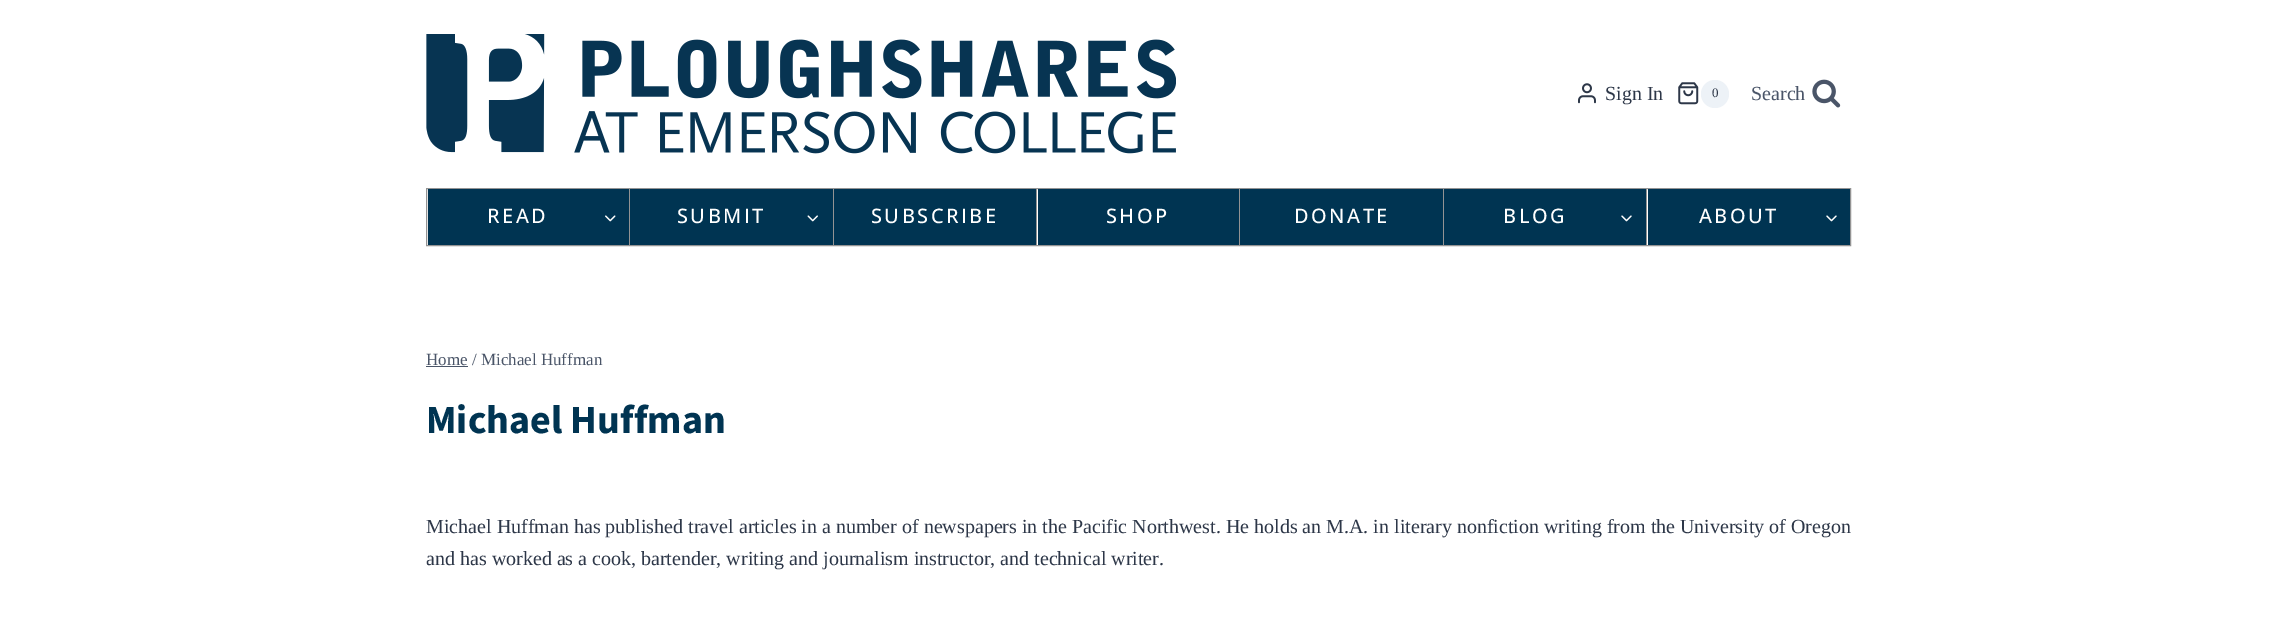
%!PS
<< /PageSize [2277 630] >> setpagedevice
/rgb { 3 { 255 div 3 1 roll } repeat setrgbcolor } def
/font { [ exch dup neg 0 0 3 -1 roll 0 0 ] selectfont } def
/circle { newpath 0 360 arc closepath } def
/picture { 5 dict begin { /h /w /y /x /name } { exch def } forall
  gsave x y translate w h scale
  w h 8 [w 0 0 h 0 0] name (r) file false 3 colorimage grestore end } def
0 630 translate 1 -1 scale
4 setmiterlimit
255 255 255 rgb
0 0 2277 630 rectfill
(img/1.rgb) 426 34 750 120 picture
(img/2.rgb) 1578 83 18 21 picture
(img/3.rgb) 1678 82 21 23 picture
237 242 247 rgb
1715 94 14 circle fill
(img/4.rgb) 1812 79 29 29 picture
147 147 147 rgb
426.5 188.5 1424 57 rectstroke
629 189 1 56 rectfill
0 52 82 rgb
428 189 201 56 rectfill
(img/5.rgb) 605 215 11 7 picture
147 147 147 rgb
833 189 1 56 rectfill
0 52 82 rgb
630 189 203 56 rectfill
(img/6.rgb) 807 215 11 7 picture
[
  [1036 189 1 56 147 147 147]
  [834 189 202 56 0 52 82]
  [1239 189 1 56 147 147 147]
  [1038 189 201 56 0 52 82]
  [1443 189 1 56 147 147 147]
  [1240 189 203 56 0 52 82]
  [1646 189 1 56 147 147 147]
  [1444 189 202 56 0 52 82]
] { aload pop rgb rectfill } forall
(img/7.rgb) 1621 215 11 7 picture
1648 189 202 56 rectfill
(img/7.rgb) 1826 215 11 7 picture
74 85 104 rgb
426 366 42 1 rectfill
/LiberationSerif-Regular 20 font
45 55 72 rgb
1605 100 moveto (Sign In) show
/LiberationSerif-Regular 13 font
1712 97 moveto (0) show
/LiberationSerif-Regular 20 font
74 85 104 rgb
1751 100 moveto (Search) show
/OpenSans-Medium 20 font
255 255 255 rgb
487 223 moveto 2.5 0 (READ) ashow
677 223 moveto 2.5 0 (SUBMIT) ashow
871 223 moveto 2.5 0 (SUBSCRIBE) ashow
1106 223 moveto 2.5 0 (SHOP) ashow
1294 223 moveto 2.5 0 (DONATE) ashow
1503 223 moveto 2.5 0 (BLOG) ashow
1699 223 moveto 2.5 0 (ABOUT) ashow
/LiberationSerif-Regular 17 font
74 85 104 rgb
426 365 moveto (Home / Michael Huffman) show
/SourceSans3-ExtraLight 40 font
0 52 82 rgb
426 433 moveto (Michael Huffman) show
/LiberationSerif-Regular 20 font
45 55 72 rgb
426 533 moveto (Michael Huffman has published travel articles in a number of newspapers in the Pacific Northwest. He holds an M.A. in literary nonfiction writing from the University of Oregon) show
426 565 moveto (and has worked as a cook, bartender, writing and journalism instructor, and technical writer.) show
showpage
